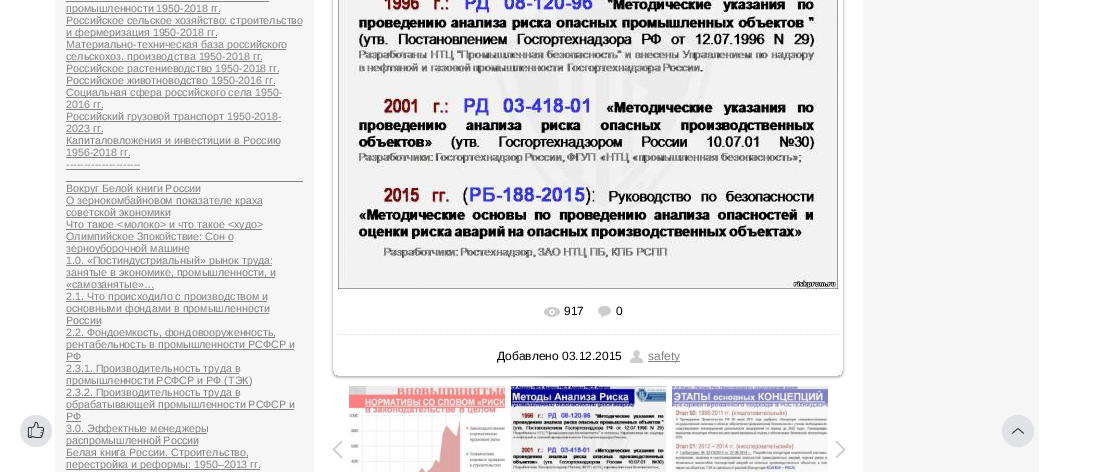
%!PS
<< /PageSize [1094 472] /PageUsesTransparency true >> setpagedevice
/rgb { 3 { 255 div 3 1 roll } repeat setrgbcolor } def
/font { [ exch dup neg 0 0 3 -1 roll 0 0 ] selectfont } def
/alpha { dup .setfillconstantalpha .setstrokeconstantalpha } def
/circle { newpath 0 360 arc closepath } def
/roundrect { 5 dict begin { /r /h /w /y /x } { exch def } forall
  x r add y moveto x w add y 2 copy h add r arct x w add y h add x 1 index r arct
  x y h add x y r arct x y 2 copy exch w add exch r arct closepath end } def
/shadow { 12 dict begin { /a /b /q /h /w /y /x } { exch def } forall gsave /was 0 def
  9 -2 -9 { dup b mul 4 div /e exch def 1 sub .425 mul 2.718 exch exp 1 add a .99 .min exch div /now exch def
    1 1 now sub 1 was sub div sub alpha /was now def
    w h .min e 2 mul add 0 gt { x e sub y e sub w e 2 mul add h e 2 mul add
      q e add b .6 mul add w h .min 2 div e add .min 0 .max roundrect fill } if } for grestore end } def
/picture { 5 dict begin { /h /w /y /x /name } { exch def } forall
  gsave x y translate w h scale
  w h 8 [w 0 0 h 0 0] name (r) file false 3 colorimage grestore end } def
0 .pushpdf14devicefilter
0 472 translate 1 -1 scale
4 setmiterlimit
255 255 255 rgb
0 0 1094 472 rectfill
[
  [55 0 259 472 246 246 246]
  [66 1 203 1 131 131 131]
  [66 13 154 1 131 131 131]
  [66 25 236 1 131 131 131]
  [66 37 151 1 131 131 131]
  [66 49 220 1 131 131 131]
  [66 61 196 1 131 131 131]
  [66 73 213 1 131 131 131]
  [66 85 209 1 131 131 131]
  [66 97 215 1 131 131 131]
  [66 109 37 1 131 131 131]
  [66 121 215 1 131 131 131]
  [66 133 37 1 131 131 131]
  [66 145 214 1 131 131 131]
  [66 157 64 1 131 131 131]
  [66 169 74 1 131 131 131]
  [66 181 237 1 131 131 131]
  [66 193 134 1 131 131 131]
  [66 205 196 1 131 131 131]
  [66 217 104 1 131 131 131]
  [66 229 196 1 131 131 131]
  [66 241 167 1 131 131 131]
  [66 253 123 1 131 131 131]
  [66 265 206 1 131 131 131]
  [66 277 209 1 131 131 131]
  [66 289 88 1 131 131 131]
  [66 301 201 1 131 131 131]
  [66 313 203 1 131 131 131]
  [66 325 35 1 131 131 131]
  [66 337 209 1 131 131 131]
  [66 349 228 1 131 131 131]
  [66 361 15 1 131 131 131]
  [66 373 173 1 131 131 131]
  [66 385 185 1 131 131 131]
  [66 397 173 1 131 131 131]
  [66 409 228 1 131 131 131]
  [66 421 15 1 131 131 131]
  [66 433 141 1 131 131 131]
  [66 445 132 1 131 131 131]
  [66 457 182 1 131 131 131]
  [66 469 194 1 131 131 131]
] { aload pop rgb rectfill } forall
gsave
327 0 moveto 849 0 lineto 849 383 lineto 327 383 lineto closepath 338 -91 moveto 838 -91 lineto 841 -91 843 -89 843 -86 curveto 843 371 lineto 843 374 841 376 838 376 curveto 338 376 lineto 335 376 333 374 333 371 curveto 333 -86 lineto 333 -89 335 -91 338 -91 curveto closepath eoclip newpath
0 0 0 rgb
333 -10 510 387 5 1.5 0.37 shadow
grestore
(img/1.rgb) 338 0 500 289 picture
(img/2.rgb) 544 307 16 10 picture
(img/3.rgb) 598 306 13 12 picture
(img/4.rgb) 338 334 500 1 picture
(img/5.rgb) 630 350 13 13 picture
648 361 32 1 rectfill
(img/6.rgb) 508 376 161 3 picture
(img/7.rgb) 332 441 11 17 picture
(img/8.rgb) 349 386 156 86 picture
(img/9.rgb) 511 386 155 86 picture
(img/10.rgb) 672 386 156 86 picture
(img/11.rgb) 835 441 11 17 picture
246 246 246 rgb
863 0 176 472 rectfill
224 226 230 rgb
36 431 16 circle fill
(img/12.rgb) 27 421 18 17 picture
1018 431 16 circle fill
(img/13.rgb) 1011 428 14 6 picture
/LiberationSans-Regular 10.7 font
131 131 131 rgb
[
  [(промышленности 1950-2018 гг.) 66 12]
  [(Российское сельское хозяйство: строительство) 66 24]
  [(и фермеризация 1950-2018 гг.) 66 36]
  [(Материально-техническая база российского) 66 48]
  [(сельскохоз. производства 1950-2018 гг.) 66 60]
  [(Российское растениеводство 1950-2018 гг.) 66 72]
  [(Российское животноводство 1950-2016 гг.) 66 84]
  [(Социальная сфера российского села 1950-) 66 96]
  [(2016 гг.) 66 108]
  [(Российский грузовой транспорт 1950-2018-) 66 120]
  [(2023 гг.) 66 132]
  [(Капиталовложения и инвестиции в Россию) 66 144]
  [(1956-2018 гг.) 66 156]
  [(---------------------) 66 168]
  [(Вокруг Белой книги России) 66 192]
  [(О зернокомбайновом показателе краха) 66 204]
  [(советской экономики) 66 216]
  [(Что такое <молоко> и что такое <худо>) 66 228]
  [(Олимпийское Зпокойствие: Сон о) 66 240]
  [(зерноуборочной машине) 66 252]
  [(1.0. «Постиндустриальный» рынок труда:) 66 264]
  [(занятые в экономике, промышленности, и) 66 276]
  [(«самозанятые»…) 66 288]
  [(2.1. Что происходило с производством и) 66 300]
  [(основными фондами в промышленности) 66 312]
  [(России) 66 324]
  [(2.2. Фондоемкость, фондовооруженность,) 66 336]
  [(рентабельность в промышленности РСФСР и) 66 348]
  [(РФ) 66 360]
  [(2.3.1. Производительность труда в) 66 372]
  [(промышленности РСФСР и РФ \(ТЭК\)) 66 384]
  [(2.3.2. Производительность труда в) 66 396]
  [(обрабатывающей промышленности РСФСР и) 66 408]
  [(РФ) 66 420]
  [(3.0. Эффектные менеджеры) 66 432]
  [(распромышленной России) 66 444]
  [(Белая книга России. Строительство,) 66 456]
  [(перестройка и реформы: 1950–2013 гг.) 66 468]
] { aload pop moveto show } forall
/LiberationSans-Regular 12 font
0 0 0 rgb
[
  [(917) 564 315]
  [(0) 616 315]
  [(Добавлено 03.12.2015) 497 360]
] { aload pop moveto show } forall
131 131 131 rgb
648 360 moveto (safety) show
.poppdf14devicefilter showpage
